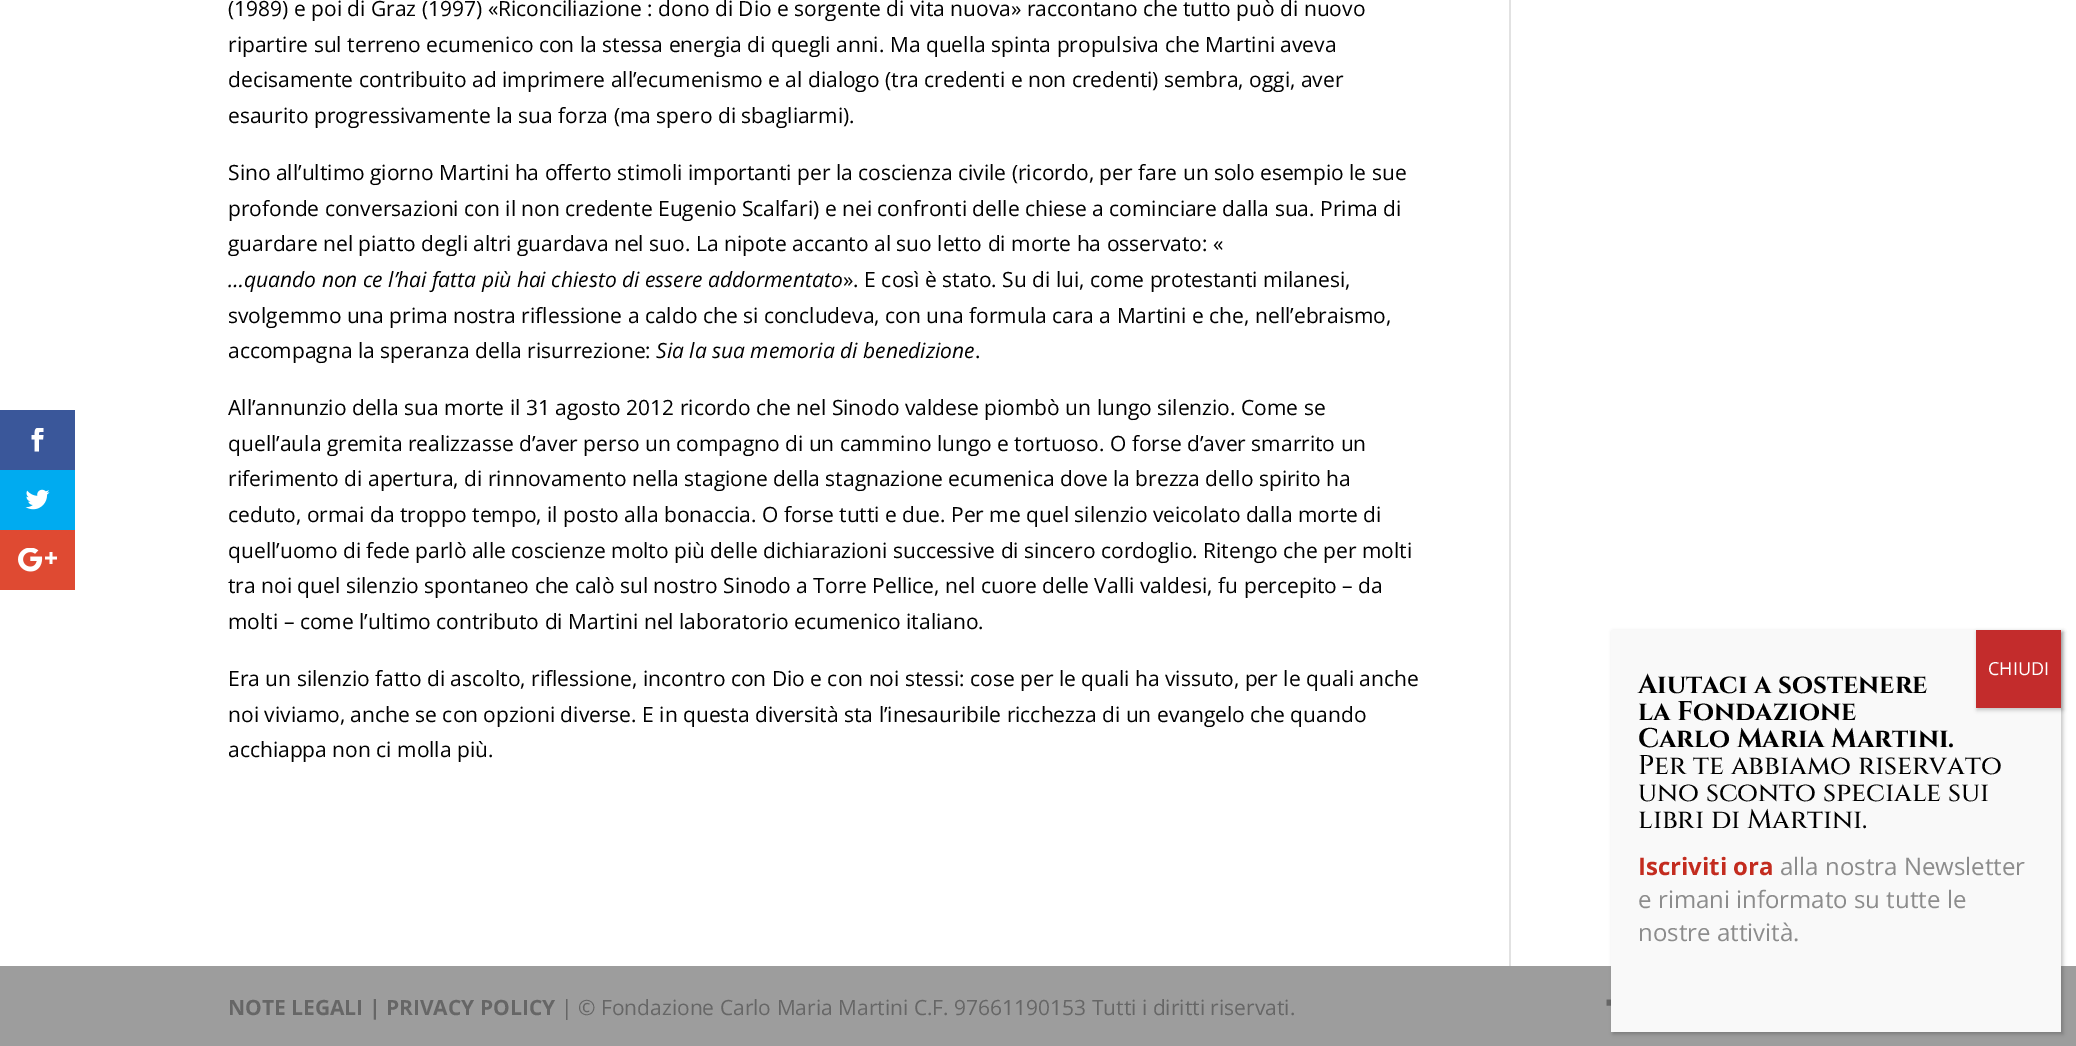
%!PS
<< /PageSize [2076 1046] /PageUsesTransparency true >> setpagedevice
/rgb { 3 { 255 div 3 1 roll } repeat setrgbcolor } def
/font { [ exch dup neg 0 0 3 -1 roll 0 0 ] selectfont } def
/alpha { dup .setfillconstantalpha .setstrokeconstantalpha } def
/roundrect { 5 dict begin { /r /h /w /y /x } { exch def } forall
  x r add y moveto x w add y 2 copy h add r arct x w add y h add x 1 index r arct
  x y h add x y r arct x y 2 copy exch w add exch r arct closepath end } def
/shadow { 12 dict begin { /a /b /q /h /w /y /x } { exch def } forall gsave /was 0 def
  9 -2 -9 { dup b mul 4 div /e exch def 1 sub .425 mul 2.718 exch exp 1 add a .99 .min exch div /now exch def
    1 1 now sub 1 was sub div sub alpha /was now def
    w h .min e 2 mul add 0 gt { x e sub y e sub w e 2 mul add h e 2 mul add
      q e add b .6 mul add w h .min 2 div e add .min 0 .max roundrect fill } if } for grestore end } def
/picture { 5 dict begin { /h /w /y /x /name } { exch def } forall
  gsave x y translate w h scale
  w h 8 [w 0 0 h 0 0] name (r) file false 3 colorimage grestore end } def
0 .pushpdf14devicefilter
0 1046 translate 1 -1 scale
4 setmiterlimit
255 255 255 rgb
0 0 2076 1046 rectfill
58 87 154 rgb
0 410 75 60 rectfill
(img/1.rgb) 31 428 13 24 picture
0 171 240 rgb
0 470 75 60 rectfill
(img/2.rgb) 25 489 25 21 picture
223 74 50 rgb
0 530 75 60 rectfill
(img/3.rgb) 18 548 39 24 picture
226 226 226 rgb
1509 0 2 966 rectfill
157 157 157 rgb
0 966 2076 80 rectfill
(img/4.rgb) 1606 999 5 7 picture
2 2 2 rgb
1613 632 450 402 0 2 0.23 shadow
249 249 249 rgb
1611 630 450 402 rectfill
2 2 2 rgb
1977 632 86 78 0 2 0.23 shadow
195 44 44 rgb
1976 630 85 78 rectfill
/OpenSans-Regular 21 font
0 0 0 rgb
[
  [(\(1989\) e poi di Graz \(1997\) «Riconciliazione : dono di Dio e sorgente di vita nuova» raccontano che tutto può di nuovo) 228 16]
  [(ripartire sul terreno ecumenico con la stessa energia di quegli anni. Ma quella spinta propulsiva che Martini aveva) 228 52]
  [(decisamente contribuito ad imprimere all’ecumenismo e al dialogo \(tra credenti e non credenti\) sembra, oggi, aver) 228 87]
  [(esaurito progressivamente la sua forza \(ma spero di sbagliarmi\).) 228 123]
  [(Sino all’ultimo giorno Martini ha offerto stimoli importanti per la coscienza civile \(ricordo, per fare un solo esempio le sue) 228 180]
  [(profonde conversazioni con il non credente Eugenio Scalfari\) e nei confronti delle chiese a cominciare dalla sua. Prima di) 228 216]
  [(guardare nel piatto degli altri guardava nel suo. La nipote accanto al suo letto di morte ha osservato: «) 228 251]
] { aload pop moveto show } forall
/OpenSans-Italic 21 font
228 287 moveto (…quando non ce l’hai fatta più hai chiesto di essere addormentato) show
/OpenSans-Regular 21 font
[
  [(». E così è stato. Su di lui, come protestanti milanesi,) 843 287]
  [(svolgemmo una prima nostra riflessione a caldo che si concludeva, con una formula cara a Martini e che, nell’ebraismo,) 228 323]
  [(accompagna la speranza della risurrezione:) 228 358]
] { aload pop moveto show } forall
/OpenSans-Italic 21 font
656 358 moveto (Sia la sua memoria di benedizione) show
/OpenSans-Regular 21 font
[
  [(.) 975 358]
  [(All’annunzio della sua morte il 31 agosto 2012 ricordo che nel Sinodo valdese piombò un lungo silenzio. Come se) 228 415]
  [(quell’aula gremita realizzasse d’aver perso un compagno di un cammino lungo e tortuoso. O forse d’aver smarrito un) 228 451]
  [(riferimento di apertura, di rinnovamento nella stagione della stagnazione ecumenica dove la brezza dello spirito ha) 228 486]
  [(ceduto, ormai da troppo tempo, il posto alla bonaccia. O forse tutti e due. Per me quel silenzio veicolato dalla morte di) 228 522]
  [(quell’uomo di fede parlò alle coscienze molto più delle dichiarazioni successive di sincero cordoglio. Ritengo che per molti) 228 558]
  [(tra noi quel silenzio spontaneo che calò sul nostro Sinodo a Torre Pellice, nel cuore delle Valli valdesi, fu percepito – da) 228 593]
  [(molti – come l’ultimo contributo di Martini nel laboratorio ecumenico italiano.) 228 629]
  [(Era un silenzio fatto di ascolto, riflessione, incontro con Dio e con noi stessi: cose per le quali ha vissuto, per le quali anche) 228 686]
  [(noi viviamo, anche se con opzioni diverse. E in questa diversità sta l’inesauribile ricchezza di un evangelo che quando) 228 722]
  [(acchiappa non ci molla più.) 228 757]
] { aload pop moveto show } forall
/OpenSans-Bold 21 font
102 102 102 rgb
228 1015 moveto (NOTE LEGALI | PRIVACY POLICY) show
/OpenSans-Regular 21 font
561 1015 moveto (| © Fondazione Carlo Maria Martini C.F. 97661190153 Tutti i diritti riservati.) show
/OpenSans-Regular 18 font
255 255 255 rgb
1988 675 moveto (CHIUDI) show
/Cinzel-Bold 27 font
0 0 0 rgb
[
  [(Aiutaci a sostenere) 1638 693]
  [(la Fondazione) 1638 720]
  [(Carlo Maria Martini.) 1638 747]
] { aload pop moveto show } forall
/Cinzel-Medium 27 font
[
  [(Per te abbiamo riservato) 1638 774]
  [(uno sconto speciale sui) 1638 801]
  [(libri di Martini.) 1638 828]
] { aload pop moveto show } forall
/OpenSans-Bold 24 font
195 44 31 rgb
1638 875 moveto (Iscriviti ora) show
/OpenSans-Regular 24 font
140 140 140 rgb
[
  [(alla nostra Newsletter) 1780 875]
  [(e rimani informato su tutte le) 1638 908]
  [(nostre attività.) 1638 941]
] { aload pop moveto show } forall
.poppdf14devicefilter showpage
